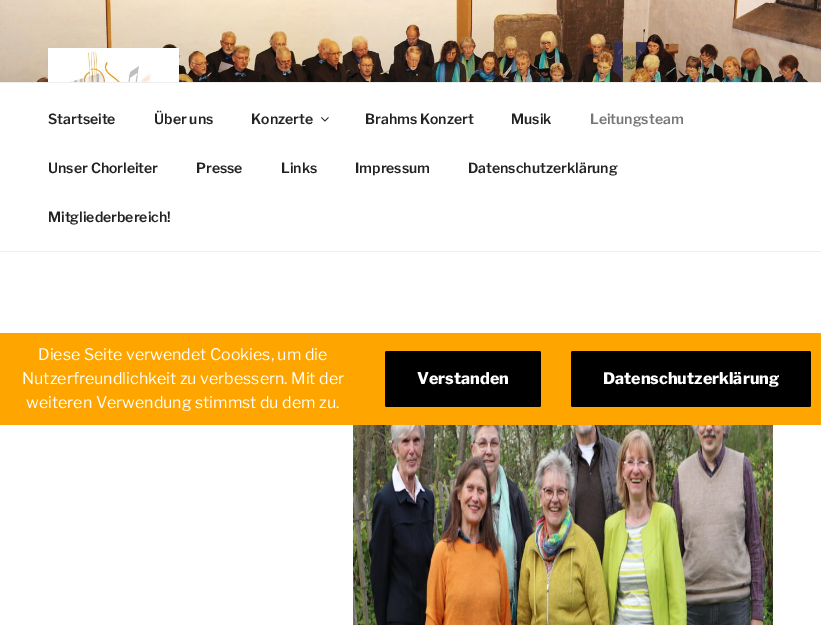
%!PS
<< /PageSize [821 625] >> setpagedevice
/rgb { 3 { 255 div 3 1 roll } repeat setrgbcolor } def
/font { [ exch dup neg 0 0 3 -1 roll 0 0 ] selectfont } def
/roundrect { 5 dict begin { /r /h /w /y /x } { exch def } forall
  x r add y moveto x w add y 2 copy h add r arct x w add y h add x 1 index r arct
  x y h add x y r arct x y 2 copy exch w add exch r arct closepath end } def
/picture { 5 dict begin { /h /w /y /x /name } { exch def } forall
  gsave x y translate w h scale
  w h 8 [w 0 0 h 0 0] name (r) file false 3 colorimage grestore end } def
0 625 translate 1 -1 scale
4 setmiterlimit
255 255 255 rgb
0 0 821 625 rectfill
(img/1.rgb) 0 0 821 82 picture
(img/2.rgb) 48 48 131 34 picture
238 238 238 rgb
0 82 821 1 rectfill
0 251 821 1 rectfill
(img/3.rgb) 321 117 8 5 picture
(img/4.rgb) 353 425 420 200 picture
255 165 0 rgb
0 333 821 92 rectfill
0 0 0 rgb
385 351 156 56 2 roundrect fill
571 351 240 56 2 roundrect fill
/LibreFranklin-Thin 14 font
34 34 34 rgb
[
  [(Startseite) 48 124]
  [(Über uns) 154 124]
  [(Konzerte) 251 124]
  [(Brahms Konzert) 365 124]
  [(Musik) 511 124]
] { aload pop moveto show } forall
118 118 118 rgb
590 124 moveto (Leitungsteam) show
34 34 34 rgb
[
  [(Unser Chorleiter) 48 173]
  [(Presse) 196 173]
  [(Links) 281 173]
  [(Impressum) 355 173]
  [(Datenschutzerklärung) 468 173]
  [(Mitgliederbereich!) 48 222]
] { aload pop moveto show } forall
/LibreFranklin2-Thin 16 font
255 255 255 rgb
[
  [(Diese Seite verwendet Cookies, um die) 38 360]
  [(Nutzerfreundlichkeit zu verbessern. Mit der) 22 384]
  [(weiteren Verwendung stimmst du dem zu.) 26 408]
] { aload pop moveto show } forall
/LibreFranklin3-Thin 16 font
417 384 moveto (Verstanden) show
603 384 moveto (Datenschutzerklärung) show
showpage
